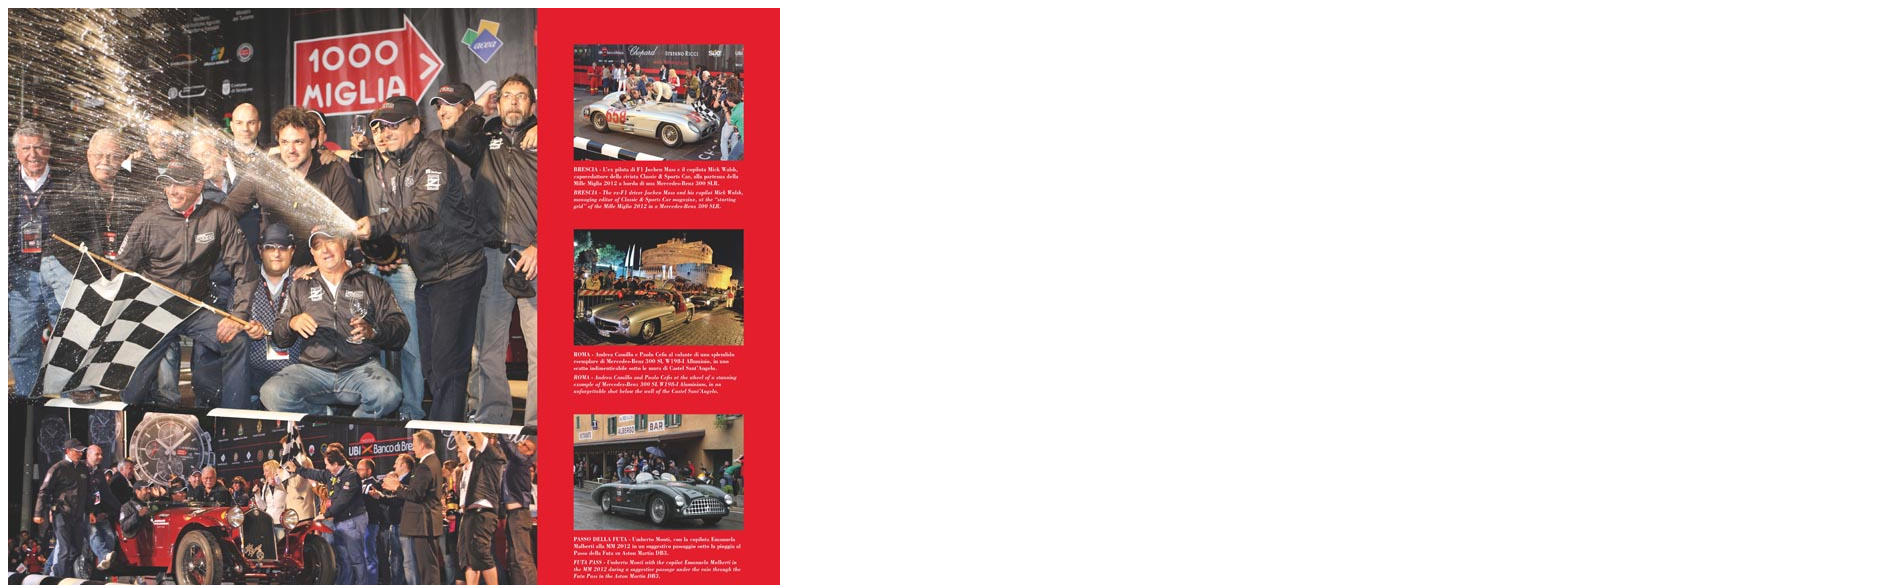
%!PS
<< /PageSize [1900 585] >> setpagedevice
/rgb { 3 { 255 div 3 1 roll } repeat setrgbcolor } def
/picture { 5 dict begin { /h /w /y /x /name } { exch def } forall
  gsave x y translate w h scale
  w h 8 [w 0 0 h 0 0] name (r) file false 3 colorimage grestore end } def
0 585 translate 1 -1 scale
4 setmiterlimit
255 255 255 rgb
0 0 1900 585 rectfill
(img/1.rgb) 8 8 772 577 picture
showpage
